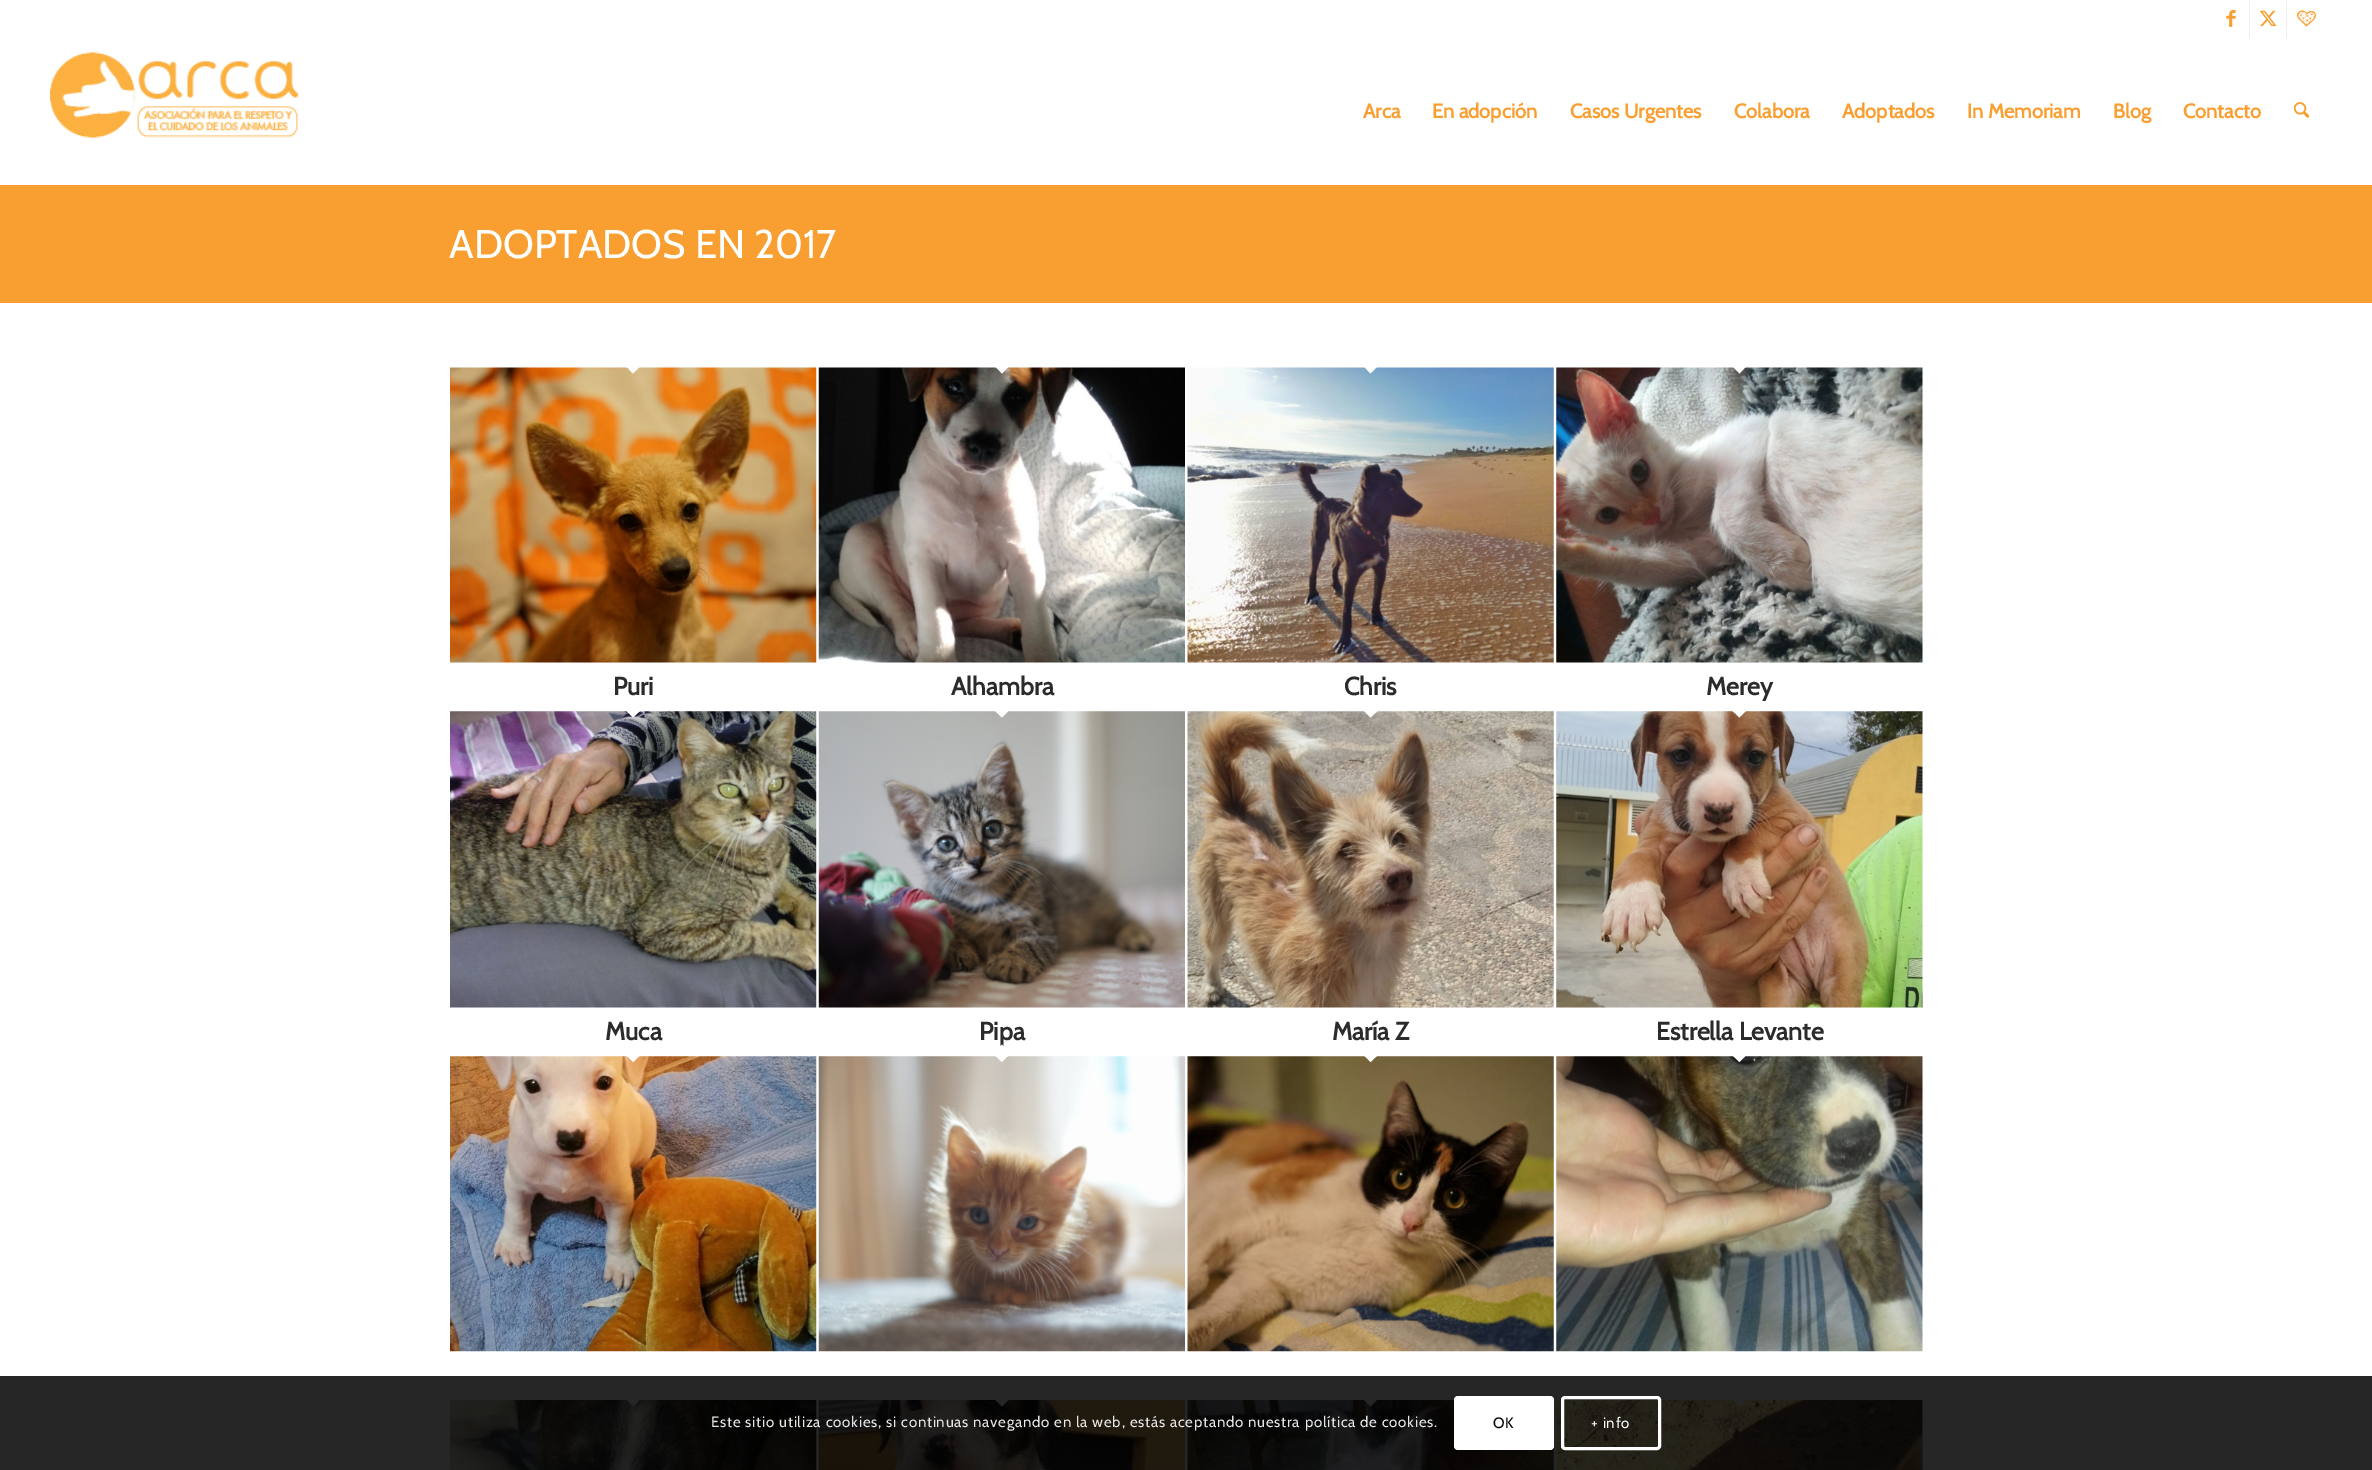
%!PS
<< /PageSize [2372 1470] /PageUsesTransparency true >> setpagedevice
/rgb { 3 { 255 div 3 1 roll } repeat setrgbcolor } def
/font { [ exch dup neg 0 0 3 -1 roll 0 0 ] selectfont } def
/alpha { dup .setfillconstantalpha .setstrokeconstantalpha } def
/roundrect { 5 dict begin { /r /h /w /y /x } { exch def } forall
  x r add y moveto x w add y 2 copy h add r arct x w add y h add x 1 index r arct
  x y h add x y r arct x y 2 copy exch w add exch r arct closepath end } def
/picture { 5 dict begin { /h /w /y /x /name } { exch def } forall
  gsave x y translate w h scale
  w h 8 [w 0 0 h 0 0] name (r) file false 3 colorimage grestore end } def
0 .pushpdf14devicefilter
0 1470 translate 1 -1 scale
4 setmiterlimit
255 255 255 rgb
0 0 2372 1470 rectfill
238 238 238 rgb
2249 0 1 38 rectfill
(img/1.rgb) 2226 10 10 17 picture
2286 0 1 38 rectfill
(img/2.rgb) 2259 10 18 17 picture
(img/3.rgb) 2296 10 20 17 picture
(img/4.rgb) 49 52 250 86 picture
(img/5.rgb) 2294 102 15 16 picture
249 159 50 rgb
0 185 2372 118 rectfill
(img/6.rgb) 450 367 367 296 picture
255 255 255 rgb
633 355.5 moveto 642 364.5 lineto 633 373.5 lineto 624.5 364.5 lineto closepath fill
(img/7.rgb) 818 367 367 296 picture
1002 355.5 moveto 1010.5 364.5 lineto 1002 373.5 lineto 993 364.5 lineto closepath fill
(img/8.rgb) 1187 367 367 296 picture
1370.5 355.5 moveto 1379.5 364.5 lineto 1370.5 373.5 lineto 1362 364.5 lineto closepath fill
(img/9.rgb) 1556 367 367 296 picture
1739.5 355.5 moveto 1748 364.5 lineto 1739.5 373.5 lineto 1730.5 364.5 lineto closepath fill
(img/10.rgb) 450 711 367 297 picture
633 700 moveto 642 709 lineto 633 717.5 lineto 624.5 709 lineto closepath fill
(img/11.rgb) 818 711 367 297 picture
1002 700 moveto 1010.5 709 lineto 1002 717.5 lineto 993 709 lineto closepath fill
(img/12.rgb) 1187 711 367 297 picture
1370.5 700 moveto 1379.5 709 lineto 1370.5 717.5 lineto 1362 709 lineto closepath fill
(img/13.rgb) 1556 711 367 297 picture
(img/14.rgb) 450 1056 367 296 picture
633 1044.5 moveto 642 1053.5 lineto 633 1062 lineto 624.5 1053.5 lineto closepath fill
(img/15.rgb) 818 1056 367 296 picture
(img/16.rgb) 1187 1056 367 296 picture
1370.5 1044.5 moveto 1379.5 1053.5 lineto 1370.5 1062 lineto 1362 1053.5 lineto closepath fill
(img/17.rgb) 1556 1056 367 296 picture
1739.5 1044.5 moveto 1748 1053.5 lineto 1739.5 1062 lineto 1730.5 1053.5 lineto closepath fill
(img/18.rgb) 450 1400 367 70 picture
633 1389 moveto 642 1397.5 lineto 633 1406.5 lineto 624.5 1397.5 lineto closepath fill
(img/19.rgb) 818 1400 367 70 picture
1002 1389 moveto 1010.5 1397.5 lineto 1002 1406.5 lineto 993 1397.5 lineto closepath fill
(img/20.rgb) 1187 1400 367 70 picture
1370.5 1389 moveto 1379.5 1397.5 lineto 1370.5 1406.5 lineto 1362 1397.5 lineto closepath fill
(img/21.rgb) 1556 1400 367 70 picture
1739.5 1389 moveto 1748 1397.5 lineto 1739.5 1406.5 lineto 1730.5 1397.5 lineto closepath fill
0.85 alpha
0 0 0 rgb
0 1376 2372 94 rectfill
1 alpha
255 255 255 rgb
1454 1396 100 54 4 roundrect fill
3 setlinewidth
1562.5 1397.5 97 51 2.5 roundrect stroke
/Cabin-Bold 20 font
249 159 49 rgb
[
  [(Arca) 1363 118]
  [(En adopción) 1432 118]
  [(Casos Urgentes) 1570 118]
  [(Colabora) 1734 118]
  [(Adoptados) 1842 118]
  [(In Memoriam) 1967 118]
  [(Blog) 2113 118]
  [(Contacto) 2183 118]
] { aload pop moveto show } forall
/Cabin-Regular 40 font
255 255 255 rgb
449 258 moveto (ADOPTADOS EN 2017) show
/Cabin-Bold 25 font
43 43 43 rgb
[
  [(Puri) 613 695]
  [(Alhambra) 951 695]
  [(Chris) 1344 695]
  [(Merey) 1706 695]
  [(Muca) 605 1040]
  [(Pipa) 979 1040]
  [(María Z) 1332 1040]
] { aload pop moveto show } forall
255 255 255 rgb
1739.5 700 moveto 1748 709 lineto 1739.5 717.5 lineto 1730.5 709 lineto closepath fill
43 43 43 rgb
1656 1040 moveto (Estrella Levante) show
255 255 255 rgb
1002 1044.5 moveto 1010.5 1053.5 lineto 1002 1062 lineto 993 1053.5 lineto closepath fill
/Cabin-Regular 15 font
231 231 231 rgb
711 1427 moveto 0.75 0 (Este sitio utiliza cookies, si continuas navegando en la web, estás aceptando nuestra política de cookies.) ashow
0 0 0 rgb
1493 1428 moveto 0.75 0 (OK) ashow
255 255 255 rgb
1591 1428 moveto 0.75 0 (+ info) ashow
.poppdf14devicefilter showpage
